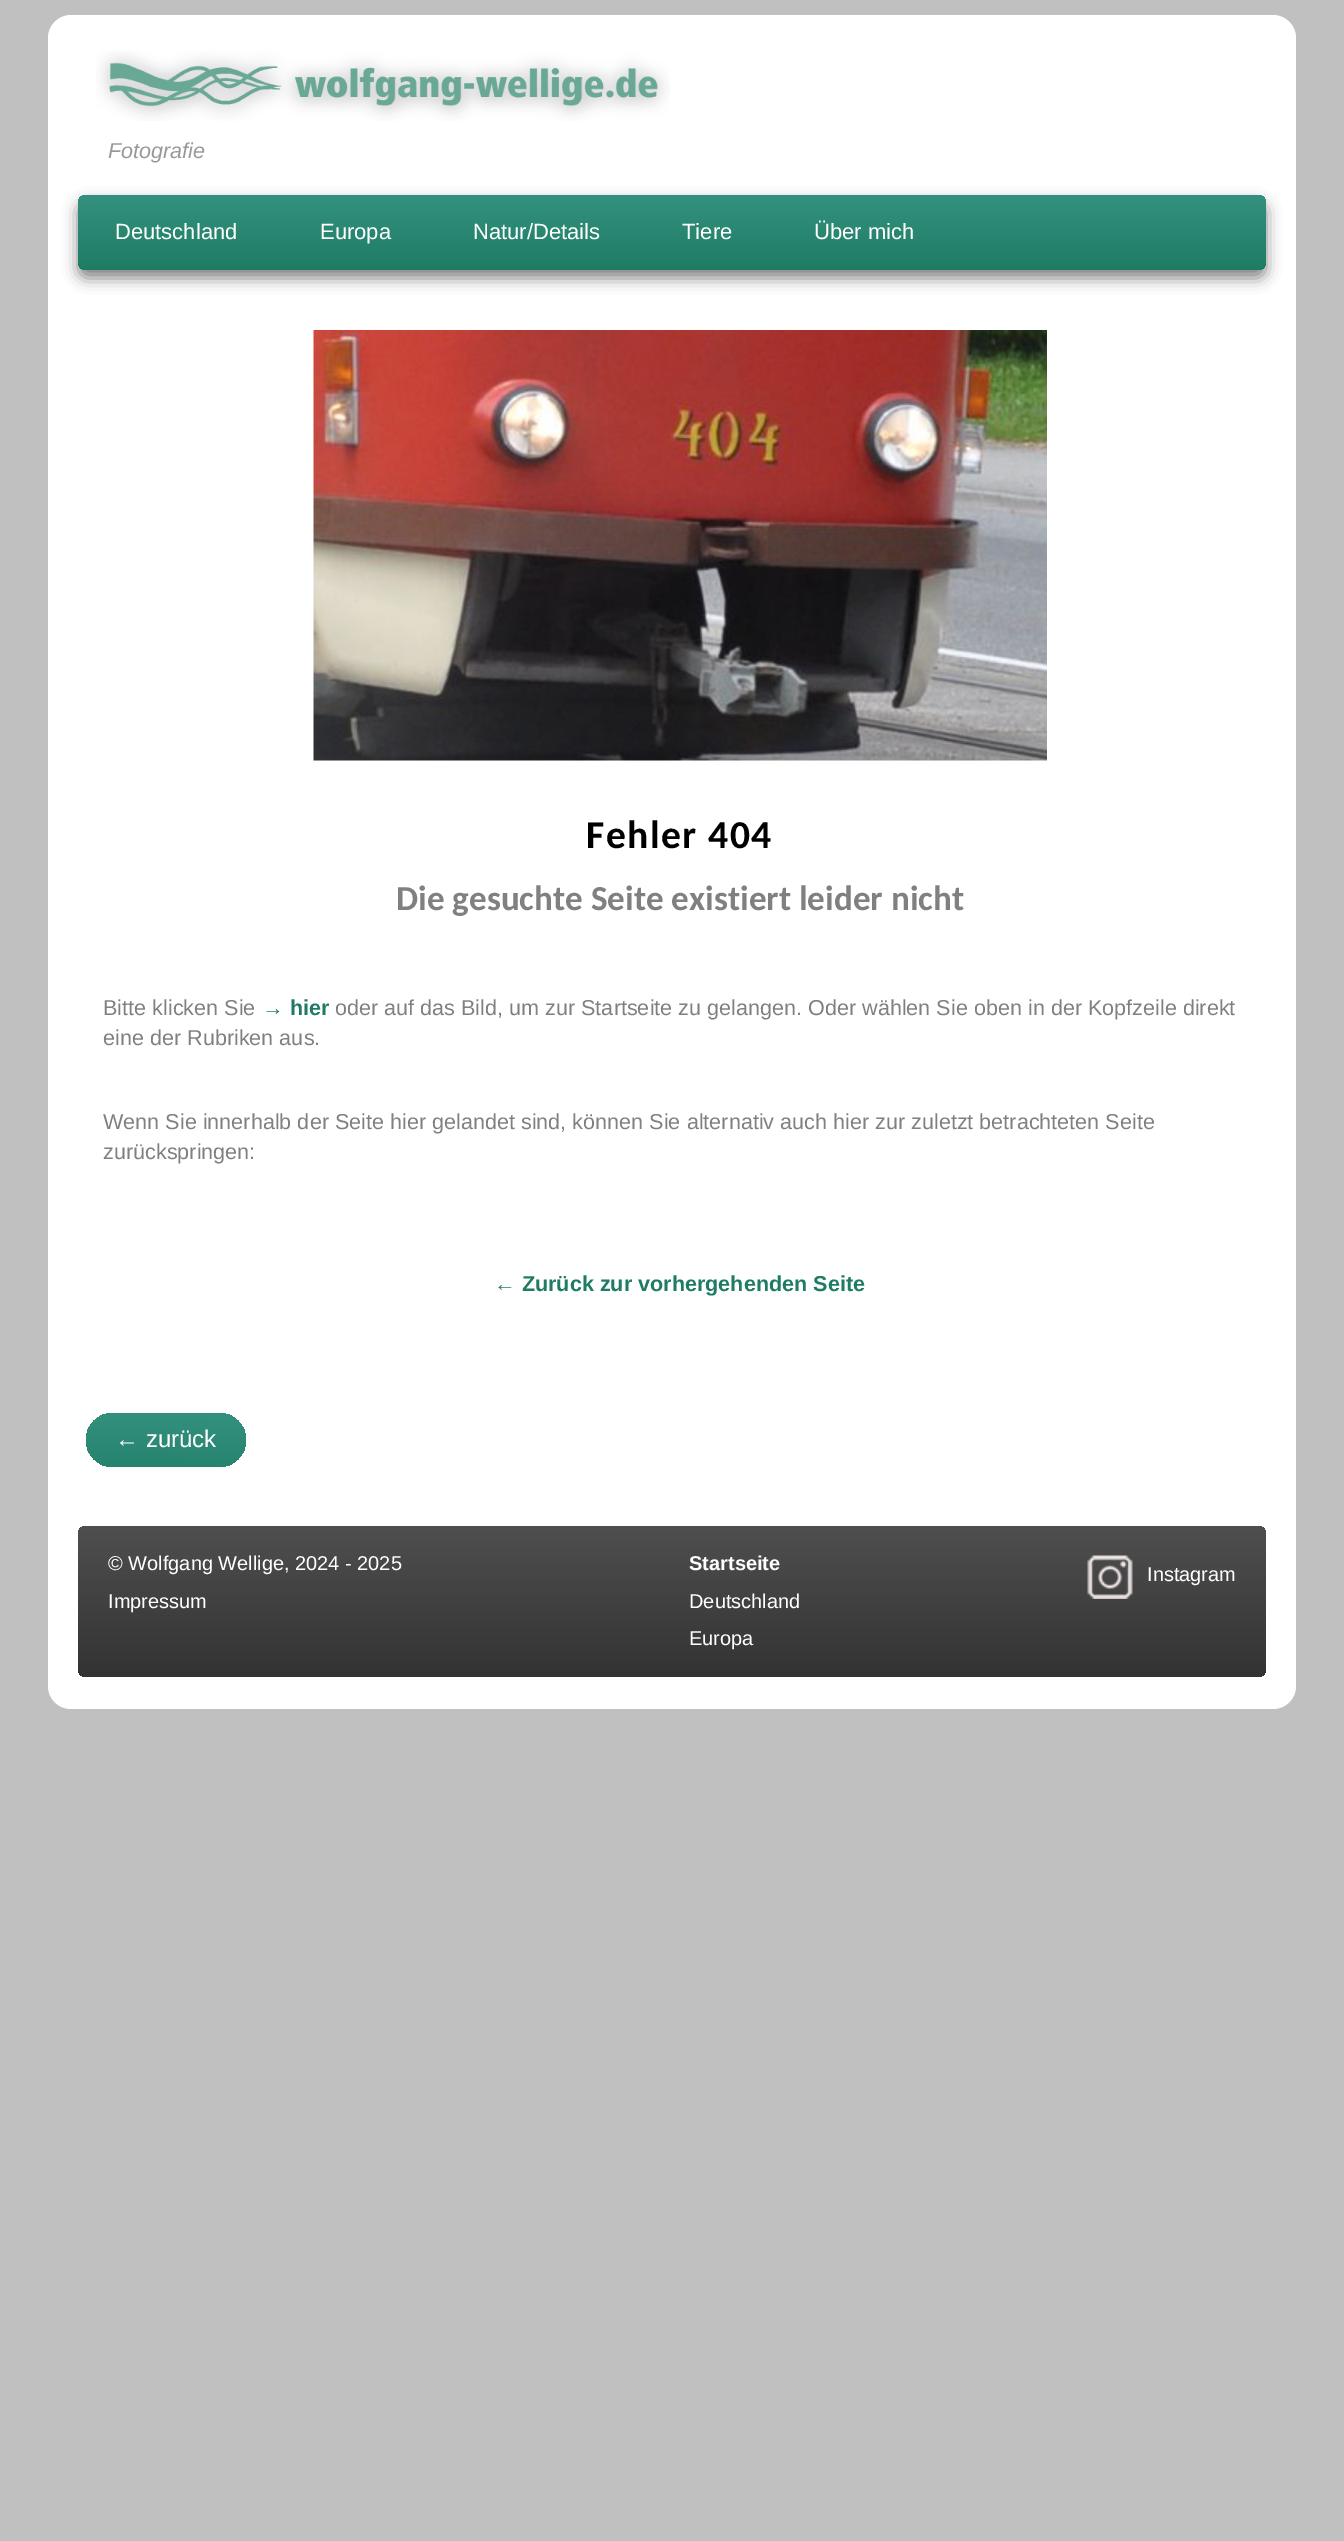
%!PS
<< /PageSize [1344 2541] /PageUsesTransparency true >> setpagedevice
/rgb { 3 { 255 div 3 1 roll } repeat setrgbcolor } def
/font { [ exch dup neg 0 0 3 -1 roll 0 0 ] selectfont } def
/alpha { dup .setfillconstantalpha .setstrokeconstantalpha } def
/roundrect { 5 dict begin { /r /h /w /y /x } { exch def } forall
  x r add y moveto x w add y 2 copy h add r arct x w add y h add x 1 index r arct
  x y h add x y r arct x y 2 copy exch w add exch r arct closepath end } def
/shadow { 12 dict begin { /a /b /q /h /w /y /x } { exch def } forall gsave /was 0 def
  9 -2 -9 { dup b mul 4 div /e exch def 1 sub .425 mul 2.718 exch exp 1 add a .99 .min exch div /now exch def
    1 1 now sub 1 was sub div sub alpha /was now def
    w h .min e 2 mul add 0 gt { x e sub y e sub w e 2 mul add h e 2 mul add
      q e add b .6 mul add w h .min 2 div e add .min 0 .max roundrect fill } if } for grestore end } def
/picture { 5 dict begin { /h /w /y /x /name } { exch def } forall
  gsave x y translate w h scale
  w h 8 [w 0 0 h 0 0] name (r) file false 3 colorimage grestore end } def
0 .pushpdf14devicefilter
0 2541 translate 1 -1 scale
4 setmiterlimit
192 192 192 rgb
0 0 1344 2541 rectfill
255 255 255 rgb
48 15 1248 1694 23 roundrect fill
(img/1.rgb) 96 50 574 71 picture
128 128 128 rgb
78 203 1188 75 8 7.5 1 shadow
gsave 78 195 1188 75 8 roundrect clip newpath
<< /ShadingType 2 /ColorSpace /DeviceRGB /Coords [672 195 672 270] /Extend [true true] /Function << /FunctionType 2 /Domain [0 1] /C0 [0.2 0.569 0.498] /C1 [0.122 0.486 0.392] /N 1 >> >> shfill grestore
(img/2.rgb) 313 330 734 431 picture
gsave 86 1413 160 54 27 roundrect clip newpath
<< /ShadingType 2 /ColorSpace /DeviceRGB /Coords [180 1499 182 1411] /Extend [true true] /Function << /FunctionType 2 /Domain [0 1] /C0 [0.122 0.486 0.392] /C1 [0.2 0.569 0.498] /N 1 >> >> shfill grestore
gsave 78 1526 1188 151 8 roundrect clip newpath
<< /ShadingType 2 /ColorSpace /DeviceRGB /Coords [672 1526 672 1677] /Extend [true true] /Function << /FunctionType 2 /Domain [0 1] /C0 [0.31 0.31 0.31] /C1 [0.2 0.2 0.2] /N 1 >> >> shfill grestore
(img/3.rgb) 1087 1555 46 44 picture
/LiberationSans-Italic 21.6 font
153 153 153 rgb
108 158 moveto (Fotografie) show
/LiberationSans-Regular 22 font
255 255 255 rgb
[
  [(Deutschland) 115 239]
  [(Europa) 320 239]
  [(Natur/Details) 473 239]
  [(Tiere) 682 239]
  [(Über mich) 814 239]
] { aload pop moveto show } forall
/Carlito-Bold 39.5 font
0 0 0 rgb
586 848 moveto 1.5 0 (Fehler 404) ashow
/Carlito-Bold 35.1 font
128 128 128 rgb
396 910 moveto (Die gesuchte Seite existiert leider nicht) show
/LiberationSans-Regular 21.6 font
103 1015 moveto (Bitte klicken Sie) show
/LiberationSans-Bold 21.6 font
31 124 100 rgb
262 1015 moveto (→ hier) show
/LiberationSans-Regular 21.6 font
128 128 128 rgb
[
  [(oder auf das Bild, um zur Startseite zu gelangen. Oder wählen Sie oben in der Kopfzeile direkt) 335 1015]
  [(eine der Rubriken aus.) 103 1045]
  [(Wenn Sie innerhalb der Seite hier gelandet sind, können Sie alternativ auch hier zur zuletzt betrachteten Seite) 103 1129]
  [(zurückspringen:) 103 1159]
] { aload pop moveto show } forall
/LiberationSans-Bold 21.6 font
31 124 100 rgb
494 1291 moveto (← Zurück zur vorhergehenden Seite) show
/LiberationSans-Regular 24 font
255 255 255 rgb
115 1447 moveto (← zurück) show
/LiberationSans-Regular 20 font
108 1570 moveto (© Wolfgang Wellige, 2024 - 2025) show
108 1608 moveto (Impressum) show
/LiberationSans-Bold 20 font
689 1570 moveto (Startseite) show
/LiberationSans-Regular 20 font
[
  [(Deutschland) 689 1608]
  [(Europa) 689 1645]
  [(Instagram) 1147 1581]
] { aload pop moveto show } forall
.poppdf14devicefilter showpage
